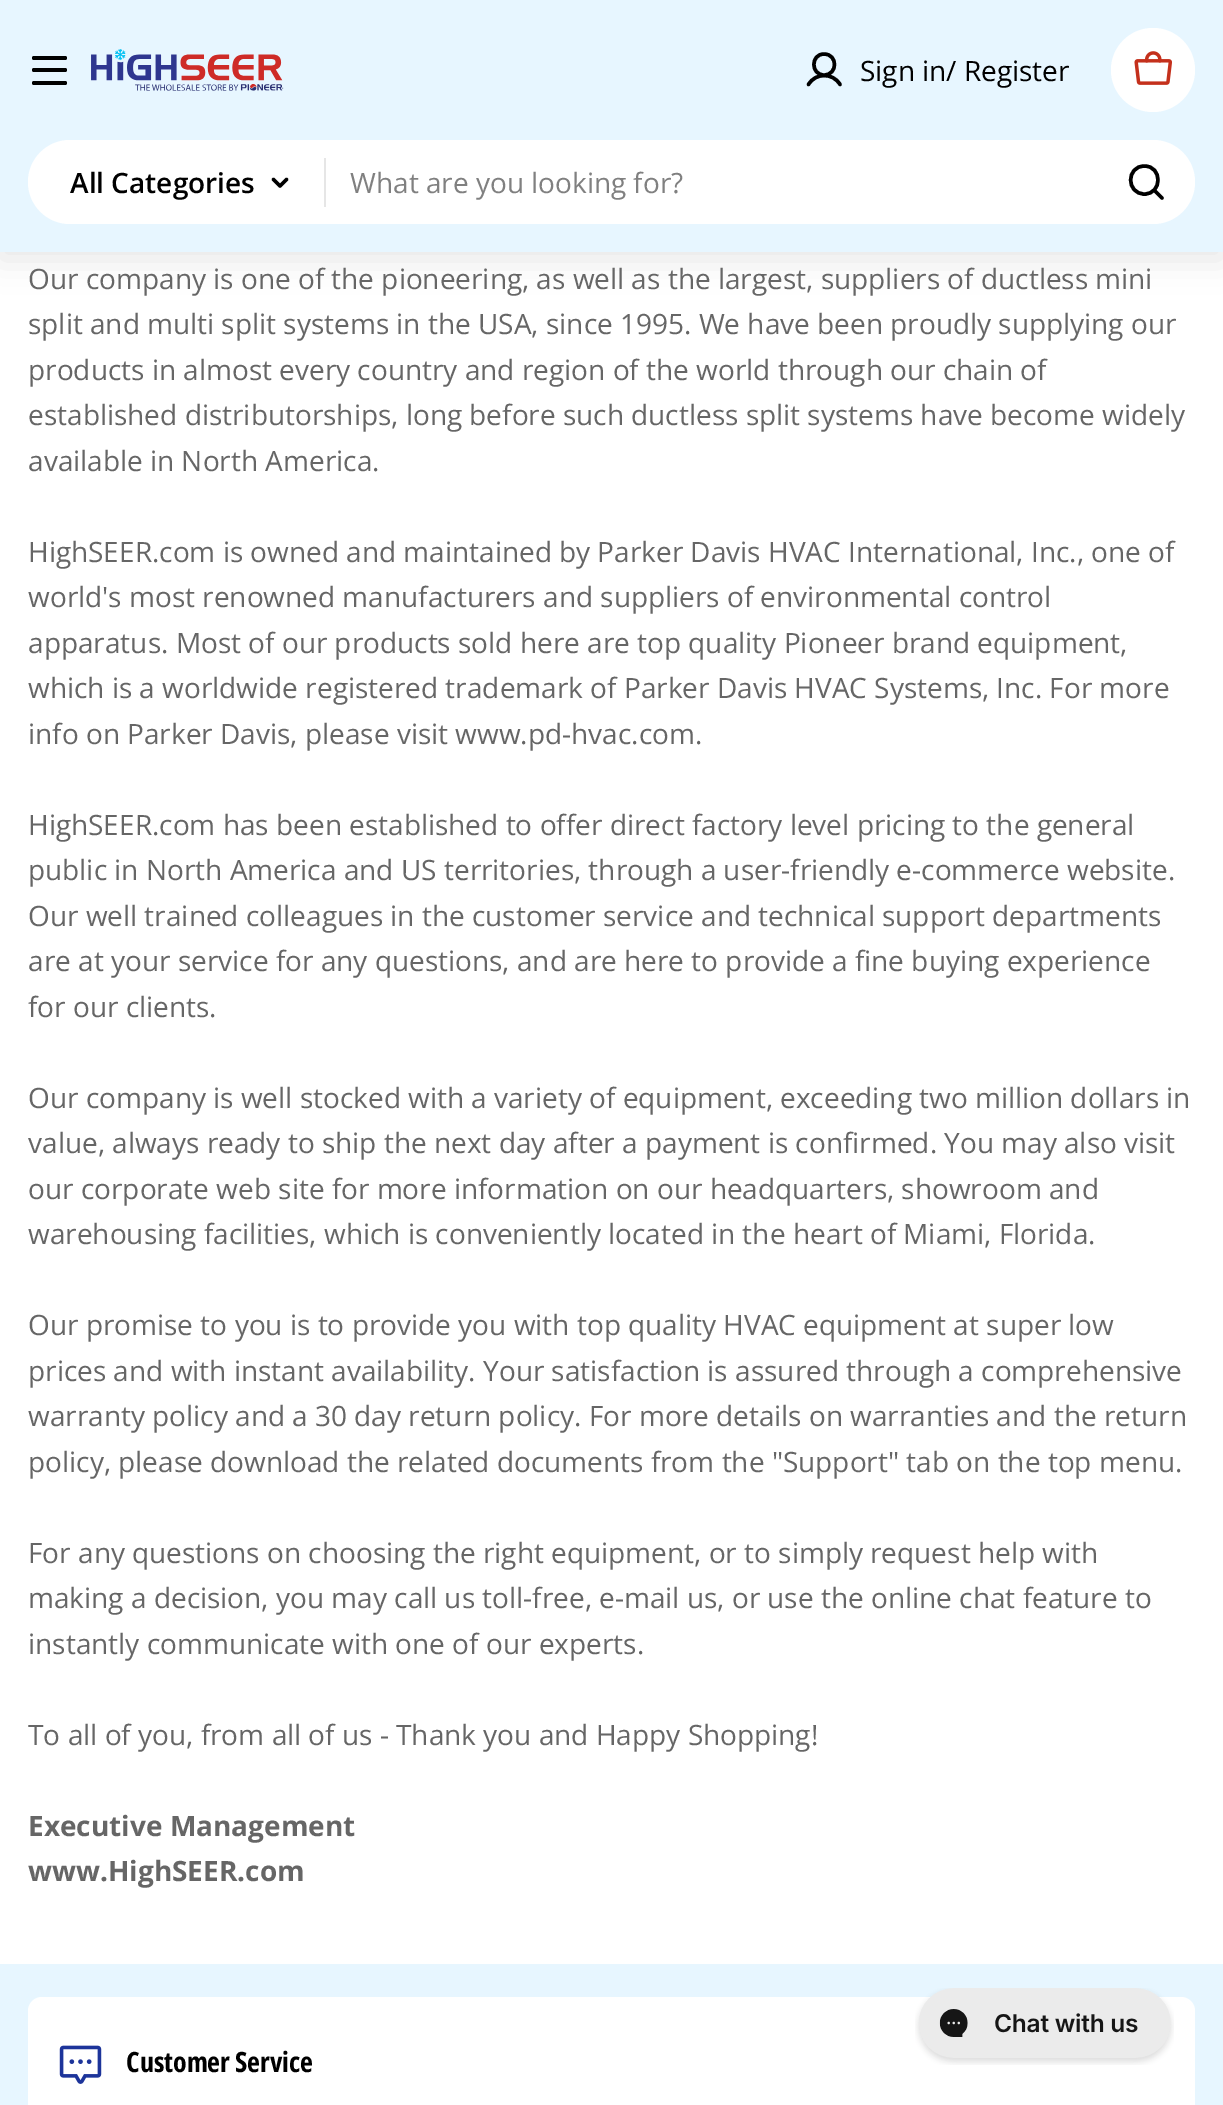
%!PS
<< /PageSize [1223 2105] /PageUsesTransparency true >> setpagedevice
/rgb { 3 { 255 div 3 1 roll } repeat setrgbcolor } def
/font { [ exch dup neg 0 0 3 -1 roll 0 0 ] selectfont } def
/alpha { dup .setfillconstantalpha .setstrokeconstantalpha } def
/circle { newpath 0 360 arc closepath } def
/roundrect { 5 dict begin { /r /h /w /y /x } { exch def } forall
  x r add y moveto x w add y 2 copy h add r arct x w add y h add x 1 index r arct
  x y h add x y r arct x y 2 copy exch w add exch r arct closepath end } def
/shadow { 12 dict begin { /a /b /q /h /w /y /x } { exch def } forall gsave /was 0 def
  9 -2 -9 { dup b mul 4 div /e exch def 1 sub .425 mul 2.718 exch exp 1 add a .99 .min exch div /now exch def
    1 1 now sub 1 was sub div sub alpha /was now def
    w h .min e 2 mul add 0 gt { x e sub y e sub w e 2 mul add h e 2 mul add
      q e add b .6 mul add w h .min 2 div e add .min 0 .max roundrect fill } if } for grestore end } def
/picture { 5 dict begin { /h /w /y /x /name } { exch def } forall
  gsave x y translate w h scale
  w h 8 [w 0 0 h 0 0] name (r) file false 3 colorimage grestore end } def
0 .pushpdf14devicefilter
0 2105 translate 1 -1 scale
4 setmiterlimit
255 255 255 rgb
0 0 1223 2105 rectfill
0 0 0 rgb
0 7 1223 252 0 16 0.1 shadow
231 246 255 rgb
0 0 1223 252 rectfill
0 0 0 rgb
32 68 35 4 2 roundrect fill
32 56 35 4 2 roundrect fill
32 81 35 4 2 roundrect fill
(img/1.rgb) 91 49 193 42 picture
3.5 setlinewidth
1 setlinecap
1 setlinejoin
824 75 moveto 838 75 838 54 824 54 curveto 810.5 54 810.5 75 824 75 curveto closepath 808.5 84.5 moveto 815.5 72.5 833 72.5 840 84.5 curveto stroke
255 255 255 rgb
1153 70 42 circle fill
(img/2.rgb) 1134 51 38 34 picture
28 140 1167 84 42 roundrect fill
0 0 0 rgb
286.5 179.5 moveto 280 186 lineto 273.5 179.5 lineto stroke
230 230 230 rgb
324 158 2 49 rectfill
0 0 0 rgb
1144.5 194 moveto 1162.5 194 1162.5 166 1144.5 166 curveto 1126 166 1126 194 1144.5 194 curveto closepath 1154 190 moveto 1162 198 lineto stroke
231 246 255 rgb
0 1964 1223 141 rectfill
255 255 255 rgb
28 1997 1167 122 14 roundrect fill
(img/3.rgb) 59 2045 43 39 picture
(img/4.rgb) 915 1988 259 77 picture
/OpenSans-Regular 28 font
0 0 0 rgb
860 81 moveto (Sign in/ Register) show
/OpenSans-SemiBold 28 font
70 193 moveto (All Categories) show
/OpenSans-Regular 28 font
128 128 128 rgb
350 193 moveto (What are you looking for?) show
102 102 102 rgb
[
  [(Our company is one of the pioneering, as well as the largest, suppliers of ductless mini) 28 289]
  [(split and multi split systems in the USA, since 1995. We have been proudly supplying our) 28 334]
  [(products in almost every country and region of the world through our chain of) 28 380]
  [(established distributorships, long before such ductless split systems have become widely) 28 425]
  [(available in North America.) 28 471]
  [(HighSEER.com is owned and maintained by Parker Davis HVAC International, Inc., one of) 28 562]
  [(world's most renowned manufacturers and suppliers of environmental control) 28 607]
  [(apparatus. Most of our products sold here are top quality Pioneer brand equipment,) 28 653]
  [(which is a worldwide registered trademark of Parker Davis HVAC Systems, Inc. For more) 28 698]
  [(info on Parker Davis, please visit www.pd-hvac.com.) 28 744]
  [(HighSEER.com has been established to offer direct factory level pricing to the general) 28 835]
  [(public in North America and US territories, through a user-friendly e-commerce website.) 28 880]
  [(Our well trained colleagues in the customer service and technical support departments) 28 926]
  [(are at your service for any questions, and are here to provide a fine buying experience) 28 971]
  [(for our clients.) 28 1017]
  [(Our company is well stocked with a variety of equipment, exceeding two million dollars in) 28 1108]
  [(value, always ready to ship the next day after a payment is confirmed. You may also visit) 28 1153]
  [(our corporate web site for more information on our headquarters, showroom and) 28 1199]
  [(warehousing facilities, which is conveniently located in the heart of Miami, Florida.) 28 1244]
  [(Our promise to you is to provide you with top quality HVAC equipment at super low) 28 1335]
  [(prices and with instant availability. Your satisfaction is assured through a comprehensive) 28 1381]
  [(warranty policy and a 30 day return policy. For more details on warranties and the return) 28 1426]
  [(policy, please download the related documents from the "Support" tab on the top menu.) 28 1472]
  [(For any questions on choosing the right equipment, or to simply request help with) 28 1563]
  [(making a decision, you may call us toll-free, e-mail us, or use the online chat feature to) 28 1608]
  [(instantly communicate with one of our experts.) 28 1654]
  [(To all of you, from all of us - Thank you and Happy Shopping!) 28 1745]
] { aload pop moveto show } forall
/OpenSans-Bold 28 font
28 1836 moveto (Executive Management) show
28 1881 moveto (www.HighSEER.com) show
/OpenSansCondensed-Bold 28 font
0 0 0 rgb
126 2072 moveto (Customer Service) show
.poppdf14devicefilter showpage
